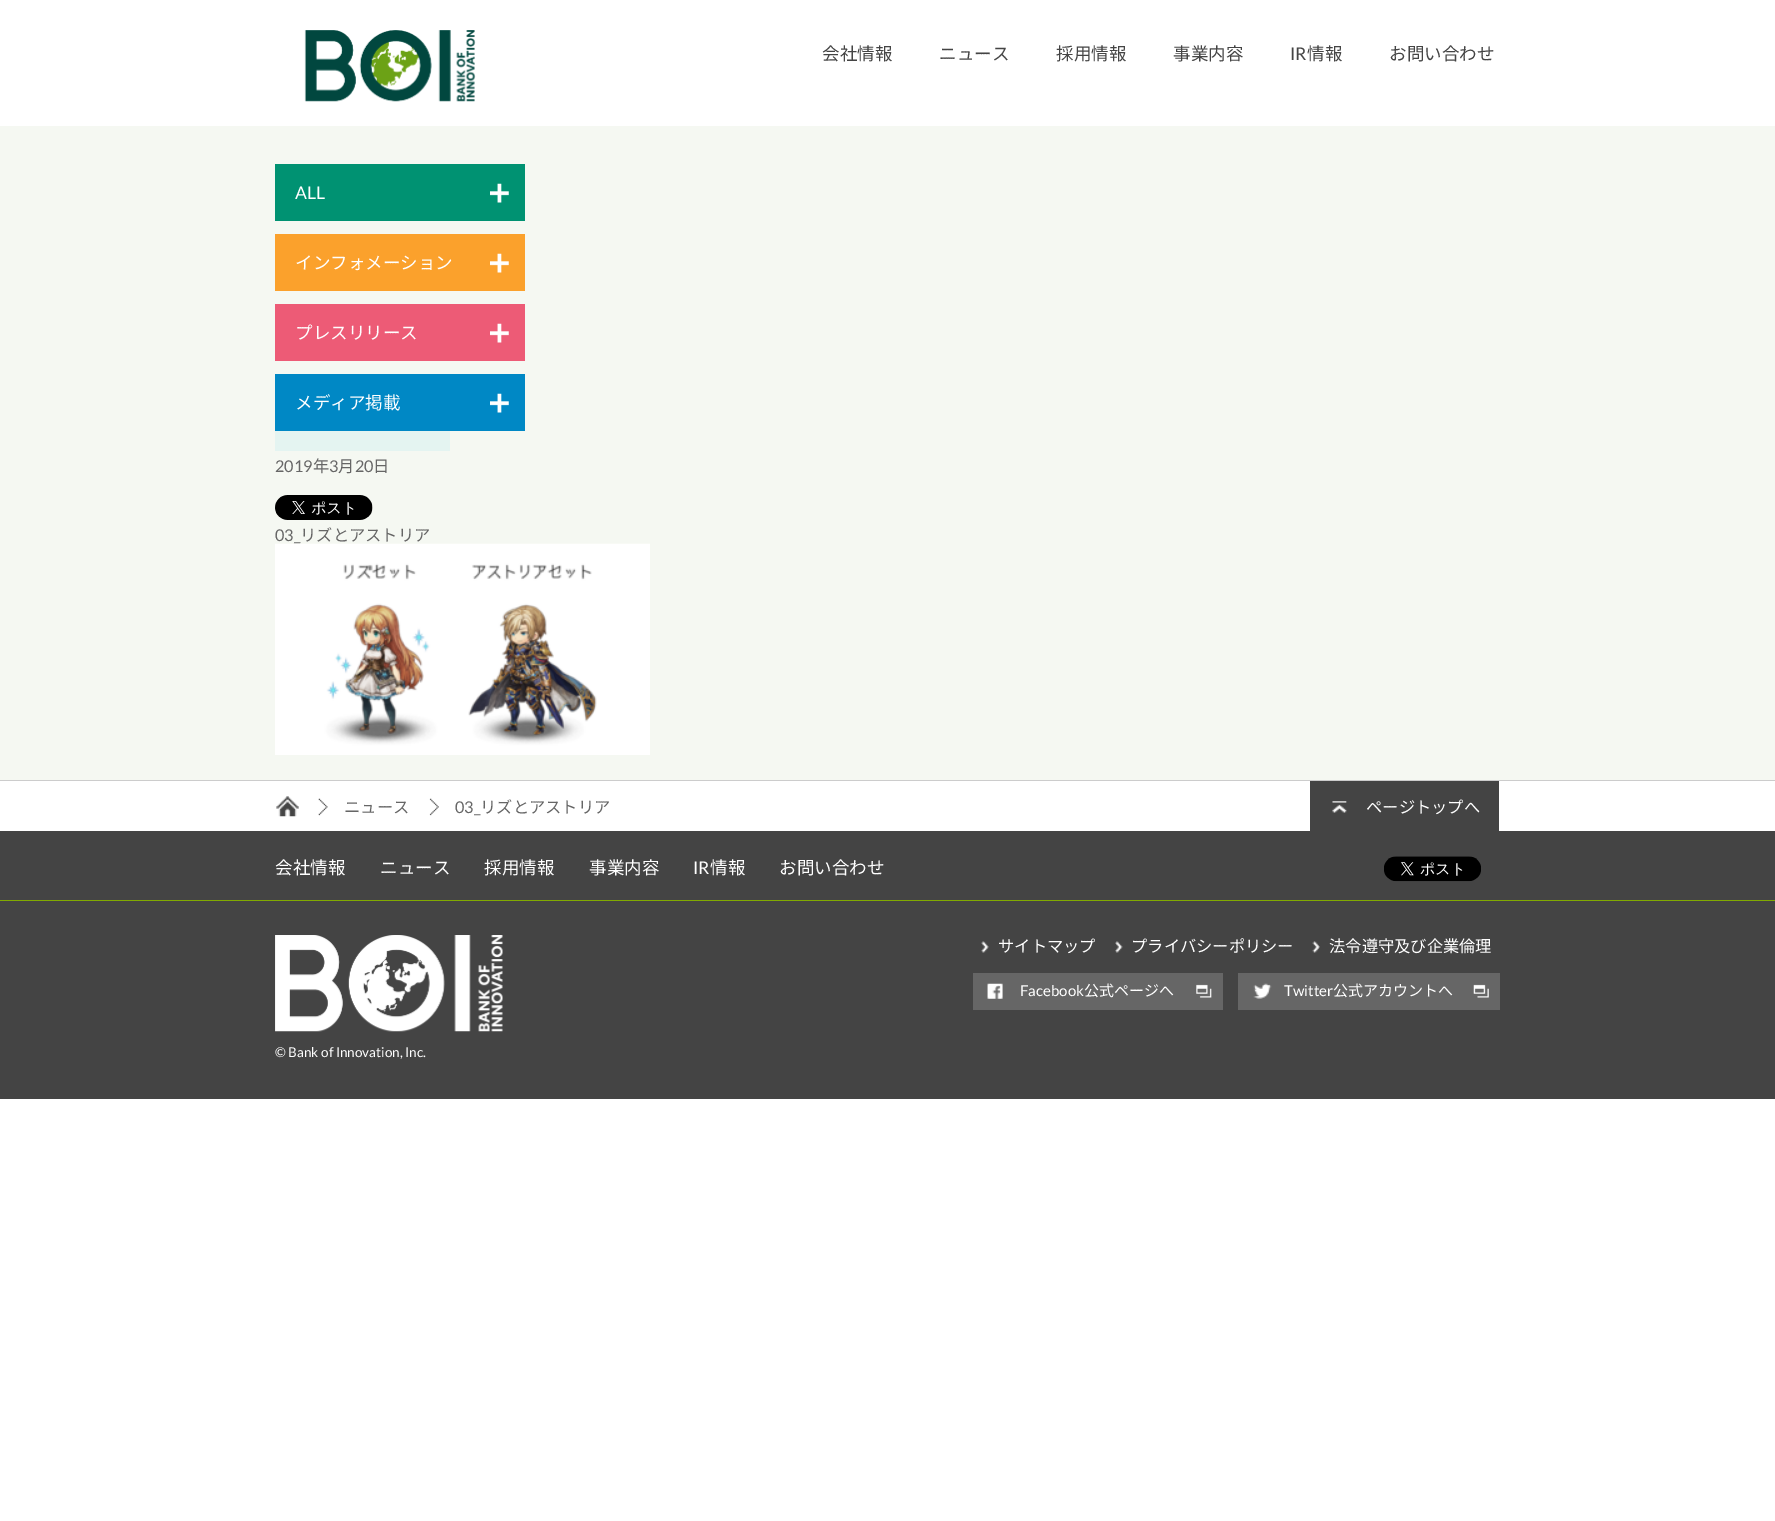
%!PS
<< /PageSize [1775 1521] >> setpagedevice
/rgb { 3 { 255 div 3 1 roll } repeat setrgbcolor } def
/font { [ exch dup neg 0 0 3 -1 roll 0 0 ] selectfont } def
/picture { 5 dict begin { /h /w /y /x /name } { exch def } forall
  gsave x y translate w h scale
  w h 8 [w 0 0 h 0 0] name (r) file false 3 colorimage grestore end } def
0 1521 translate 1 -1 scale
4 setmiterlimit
255 255 255 rgb
0 0 1775 1521 rectfill
(img/1.rgb) 304 30 172 72 picture
245 248 242 rgb
0 126 1775 654 rectfill
0 146 114 rgb
275 164 250 57 rectfill
(img/2.rgb) 490 183 19 20 picture
251 161 44 rgb
275 234 250 57 rectfill
(img/3.rgb) 490 253 19 20 picture
237 91 118 rgb
275 304 250 57 rectfill
(img/4.rgb) 490 323 19 20 picture
0 136 197 rgb
275 374 250 57 rectfill
(img/5.rgb) 490 393 19 20 picture
228 244 241 rgb
275 431 175 20 rectfill
(img/6.rgb) 275 495 98 25 picture
204 204 204 rgb
0 780 1775 1 rectfill
(img/8.rgb) 276 796 23 21 picture
(img/9.rgb) 318 798 10 18 picture
(img/10.rgb) 429 798 10 18 picture
68 68 68 rgb
1310 781 189 50 rectfill
(img/11.rgb) 1332 801 15 12 picture
0 831 1775 268 rectfill
(img/12.rgb) 1384 856 97 26 picture
129 170 0 rgb
0 900 1775 1 rectfill
(img/13.rgb) 981 941 8 12 picture
(img/14.rgb) 1115 941 8 12 picture
(img/15.rgb) 1312 941 8 12 picture
102 102 102 rgb
973 973 250 37 rectfill
(img/16.rgb) 987 983 16 16 picture
(img/17.rgb) 1196 984 16 14 picture
1238 973 262 37 rectfill
(img/18.rgb) 1253 983 19 16 picture
(img/19.rgb) 1473 984 16 14 picture
(img/20.rgb) 275 935 228 97 picture
/NotoSansJP-Regular 17.5 font
68 68 68 rgb
[
  [(会社情報) 822 60]
  [(ニュース) 939 60]
  [(採用情報) 1056 60]
  [(事業内容) 1173 60]
] { aload pop moveto show } forall
/Lato-Regular 17.5 font
1290 60 moveto (IR) show
/NotoSansJP-Regular 17.5 font
1307 60 moveto (情報) show
1389 60 moveto (お問い合わせ) show
/Lato-Regular 17.5 font
255 255 255 rgb
295 199 moveto (ALL) show
/NotoSansJP-Regular 17.5 font
[
  [(インフォメーション) 295 269]
  [(プレスリリース) 295 339]
  [(メディア掲載) 295 409]
] { aload pop moveto show } forall
/Lato-Regular 16.25 font
102 102 102 rgb
275 472 moveto (2019) show
/NotoSansJP-Regular 16.25 font
313 472 moveto (年) show
/Lato-Regular 16.25 font
329 472 moveto (3) show
/NotoSansJP-Regular 16.25 font
338 472 moveto (月) show
/Lato-Regular 16.25 font
355 472 moveto (20) show
/NotoSansJP-Regular 16.25 font
373 472 moveto (日) show
/Lato-Regular 16.25 font
275 541 moveto (03_) show
/NotoSansJP-Regular 16.25 font
300 541 moveto (リズとアストリア) show
(img/7.rgb) 275 543 375 212 picture
344 813 moveto (ニュース) show
/Lato-Regular 16.25 font
455 813 moveto (03_) show
/NotoSansJP-Regular 16.25 font
480 813 moveto (リズとアストリア) show
255 255 255 rgb
1366 813 moveto (ページトップへ) show
/NotoSansJP-Regular 17.5 font
[
  [(会社情報) 275 874]
  [(ニュース) 380 874]
  [(採用情報) 484 874]
  [(事業内容) 589 874]
] { aload pop moveto show } forall
/Lato-Regular 17.5 font
693 874 moveto (IR) show
/NotoSansJP-Regular 17.5 font
710 874 moveto (情報) show
779 874 moveto (お問い合わせ) show
/NotoSansJP-Regular 16.25 font
[
  [(サイトマップ) 998 952]
  [(プライバシーポリシー) 1131 952]
  [(法令遵守及び企業倫理) 1329 952]
] { aload pop moveto show } forall
/Lato-Regular 15 font
1020 996 moveto (Facebook) show
/NotoSansJP-Regular 15 font
1084 996 moveto (公式ページへ) show
/Lato-Regular 15 font
1284 996 moveto (Twitter) show
/NotoSansJP-Regular 15 font
1333 996 moveto (公式アカウントへ) show
/Lato-Regular 13.5 font
275 1057 moveto (© Bank of Innovation, Inc.) show
showpage
